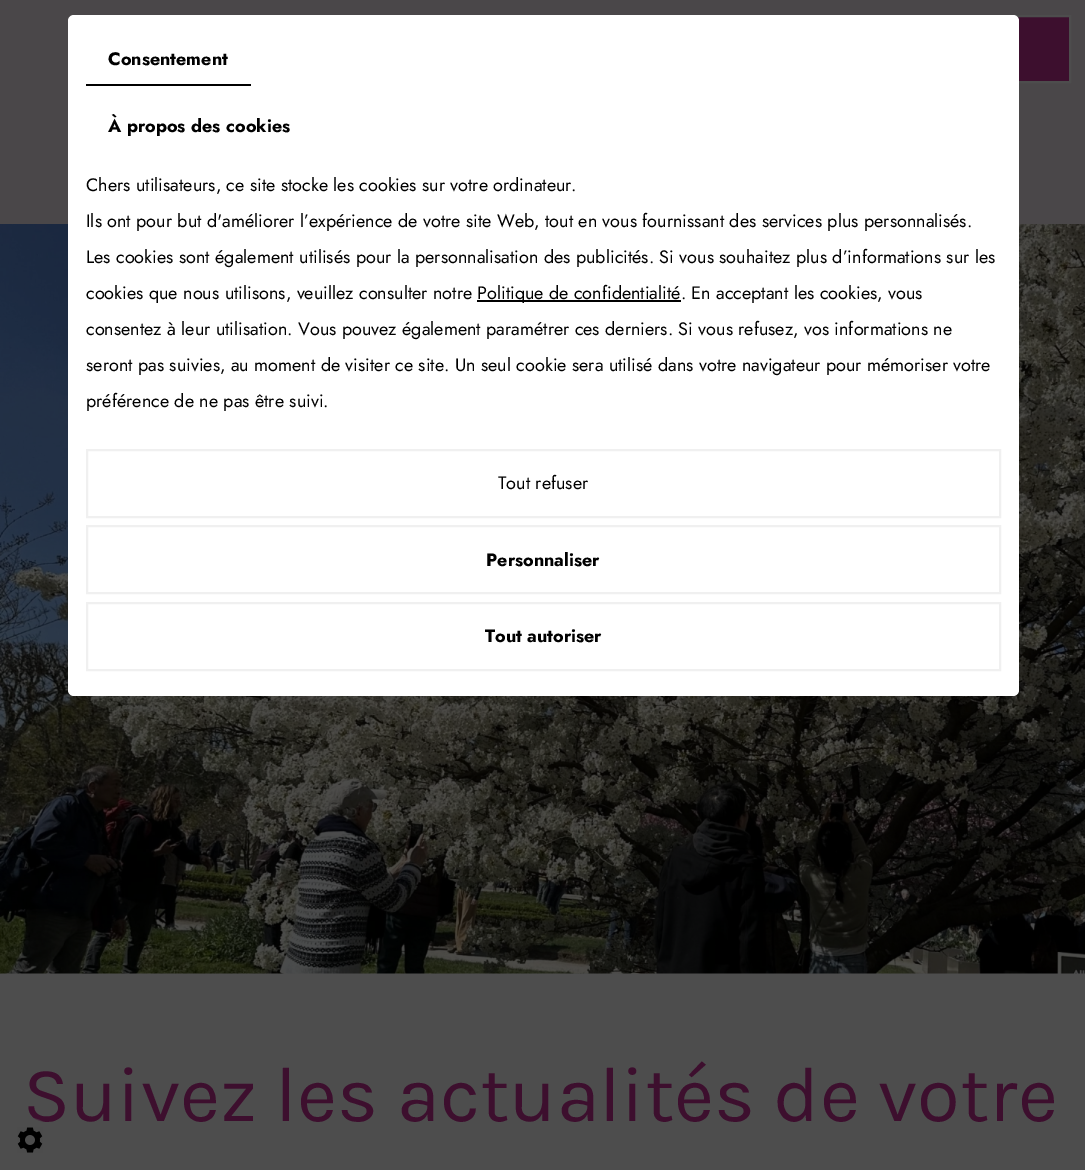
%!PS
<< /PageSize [1085 1170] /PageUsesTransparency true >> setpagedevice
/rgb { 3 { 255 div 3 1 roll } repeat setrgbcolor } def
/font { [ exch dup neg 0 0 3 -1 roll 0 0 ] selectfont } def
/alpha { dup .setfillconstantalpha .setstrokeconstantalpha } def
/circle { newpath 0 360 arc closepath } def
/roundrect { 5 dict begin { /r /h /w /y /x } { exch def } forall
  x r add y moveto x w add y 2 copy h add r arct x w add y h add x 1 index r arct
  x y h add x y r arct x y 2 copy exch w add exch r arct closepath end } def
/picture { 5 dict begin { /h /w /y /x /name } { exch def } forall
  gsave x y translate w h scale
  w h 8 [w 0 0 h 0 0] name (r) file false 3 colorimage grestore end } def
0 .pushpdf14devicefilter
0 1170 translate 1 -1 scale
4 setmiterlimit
77 77 77 rgb
0 0 1085 1170 rectfill
74 71 73 rgb
0 0 1085 224 rectfill
61 15 46 rgb
1017 17 52 64 rectfill
77 77 77 rgb
2 setlinewidth
1005 16 65 66 rectstroke
(img/1.rgb) 0 224 1085 750 picture
255 255 255 rgb
68 15 951 681 6 roundrect fill
0 0 0 rgb
86 84 165 2 rectfill
477 300 204 2 rectfill
240 240 240 rgb
87 450 913 67 rectstroke
87 526 913 67 rectstroke
87 603 913 67 rectstroke
/Jost-Bold 18 font
0 0 0 rgb
108 65 moveto (Consentement) show
108 132 moveto (À propos des cookies) show
/Jost-Regular 18 font
[
  [(Chers utilisateurs, ce site stocke les cookies sur votre ordinateur.) 86 191]
  [(Ils ont pour but d'améliorer l’expérience de votre site Web, tout en vous fournissant des services plus personnalisés.) 86 227]
  [(Les cookies sont également utilisés pour la personnalisation des publicités. Si vous souhaitez plus d’informations sur les) 86 263]
  [(cookies que nous utilisons, veuillez consulter notre) 86 299]
  [(Politique de confidentialité. En acceptant les cookies, vous) 477 299]
  [(consentez à leur utilisation. Vous pouvez également paramétrer ces derniers. Si vous refusez, vos informations ne) 86 335]
  [(seront pas suivies, au moment de visiter ce site. Un seul cookie sera utilisé dans votre navigateur pour mémoriser votre) 86 371]
  [(préférence de ne pas être suivi.) 86 407]
  [(Tout refuser) 498 489]
] { aload pop moveto show } forall
/Jost-Bold 18 font
486 566 moveto (Personnaliser) show
485 642 moveto (Tout autoriser) show
/Karla-Regular 78 font
61 15 46 rgb
23 1121 moveto (Suivez les actualités de votre) show
0.54 alpha
77 77 77 rgb
30.5 1140.5 22.5 circle fill
1 alpha
(img/2.rgb) 17 1127 26 26 picture
.poppdf14devicefilter showpage
